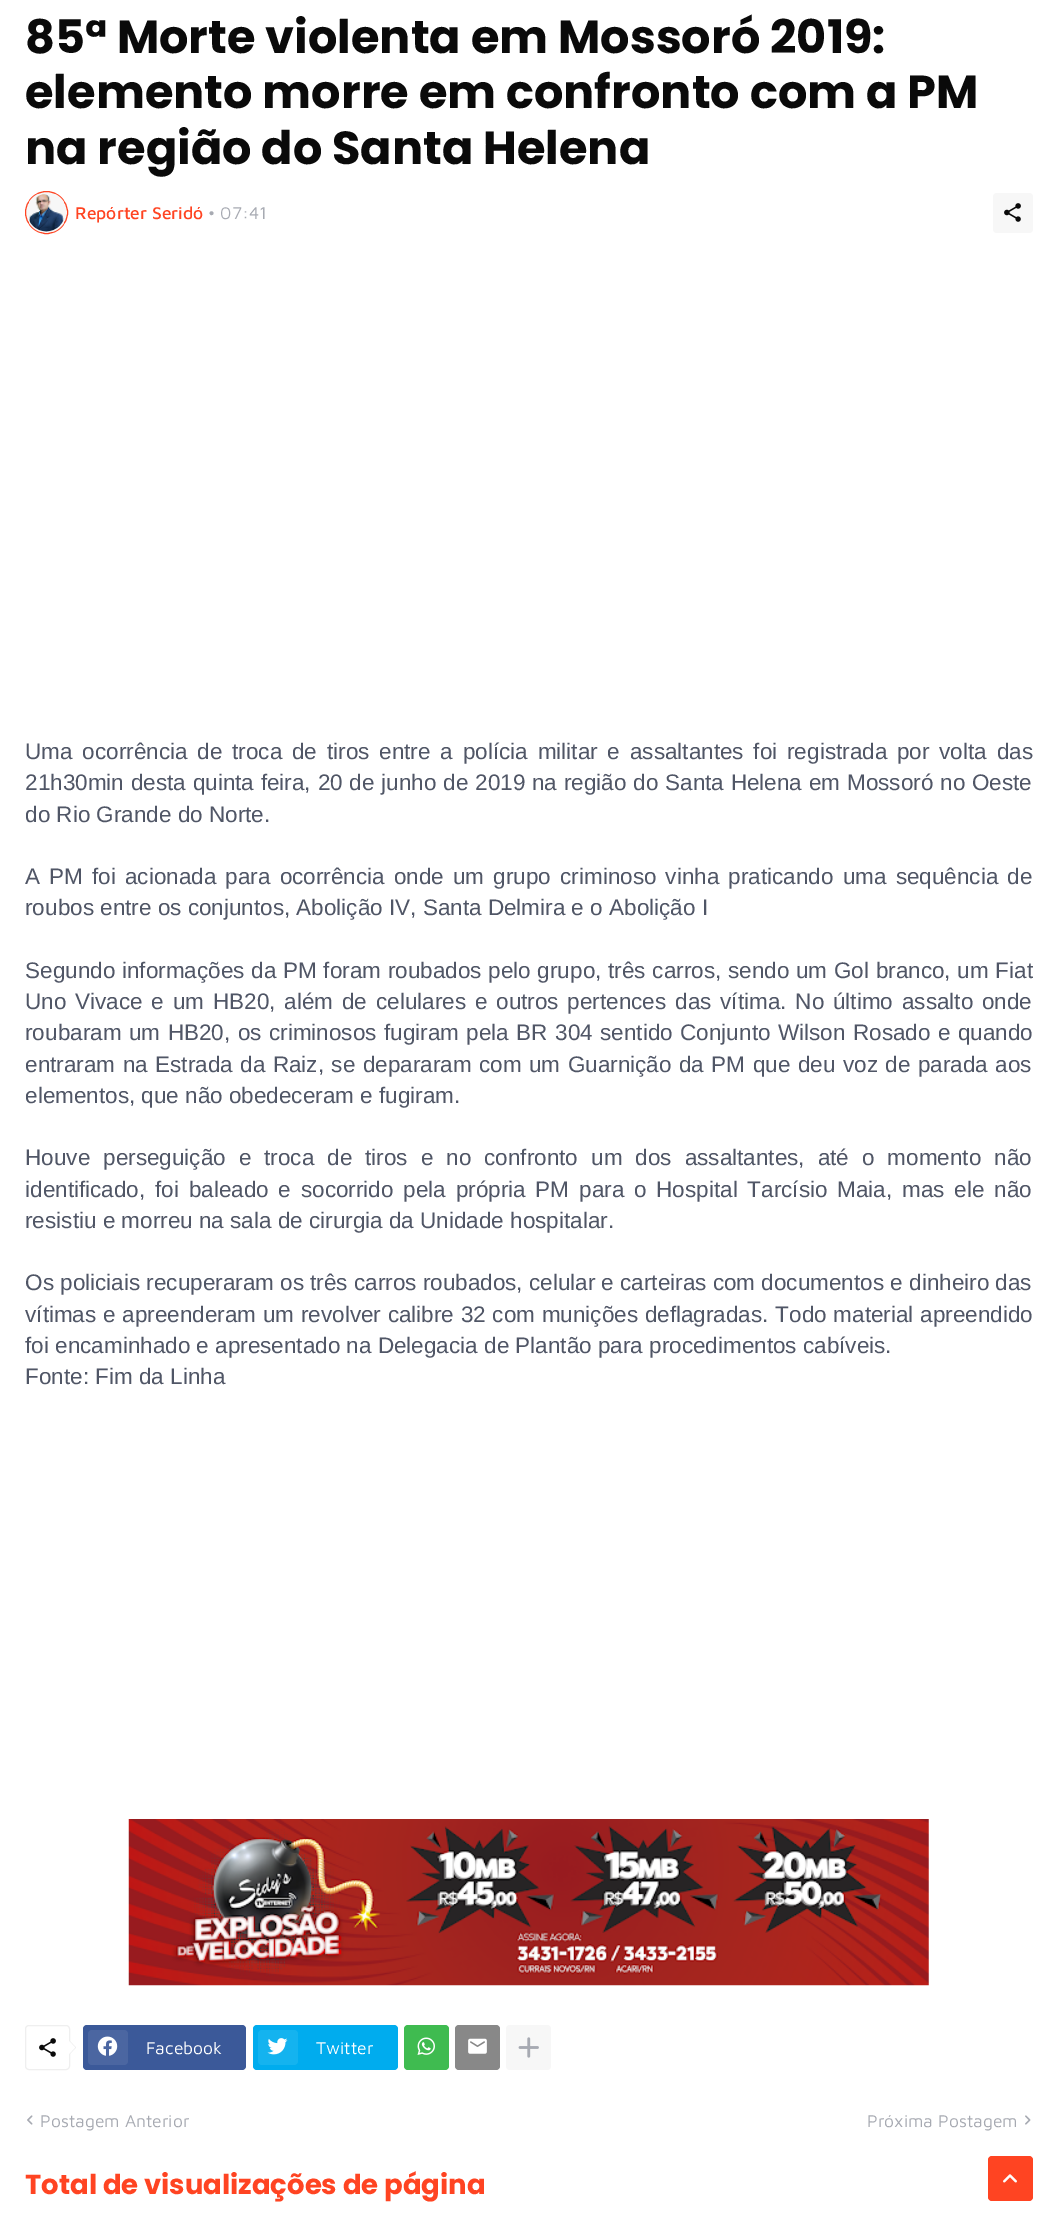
%!PS
<< /PageSize [1057 2226] >> setpagedevice
/rgb { 3 { 255 div 3 1 roll } repeat setrgbcolor } def
/font { [ exch dup neg 0 0 3 -1 roll 0 0 ] selectfont } def
/circle { newpath 0 360 arc closepath } def
/roundrect { 5 dict begin { /r /h /w /y /x } { exch def } forall
  x r add y moveto x w add y 2 copy h add r arct x w add y h add x 1 index r arct
  x y h add x y r arct x y 2 copy exch w add exch r arct closepath end } def
/picture { 5 dict begin { /h /w /y /x /name } { exch def } forall
  gsave x y translate w h scale
  w h 8 [w 0 0 h 0 0] name (r) file false 3 colorimage grestore end } def
0 2226 translate 1 -1 scale
4 setmiterlimit
255 255 255 rgb
0 0 1057 2226 rectfill
247 247 247 rgb
46.5 212.5 21 circle gsave fill grestore
255 68 34 rgb
stroke
(img/1.rgb) 29 194 35 38 picture
247 247 247 rgb
993 193 40 40 4 roundrect fill
(img/2.rgb) 1004 203 17 19 picture
(img/3.rgb) 128 1819 801 167 picture
239 239 239 rgb
25.5 2025.5 44 44 3.5 roundrect stroke
(img/4.rgb) 39 2038 17 19 picture
69 2055 moveto 69 2040 lineto 76 2047.5 lineto closepath fill
255 255 255 rgb
69 2054 moveto 69 2041 lineto 75 2047.5 lineto closepath fill
59 89 153 rgb
83 2025 163 45 4 roundrect fill
75 102 161 rgb
88 2030 40 35 4 roundrect fill
(img/5.rgb) 97 2036 21 20 picture
0 172 238 rgb
253 2025 145 45 4 roundrect fill
20 179 239 rgb
258 2030 40 35 4 roundrect fill
(img/6.rgb) 267 2038 21 17 picture
63 187 80 rgb
404 2025 45 45 4 roundrect fill
(img/7.rgb) 417 2037 18 18 picture
136 136 136 rgb
455 2025 45 45 4 roundrect fill
(img/8.rgb) 468 2038 19 16 picture
247 247 247 rgb
506 2025 45 45 4 roundrect fill
(img/9.rgb) 518 2037 21 21 picture
(img/10.rgb) 27 2115 6 10 picture
(img/11.rgb) 1025 2115 6 10 picture
255 68 34 rgb
988 2156 45 45 4 roundrect fill
(img/12.rgb) 1003 2174 14 9 picture
/Poppins-Bold 46.25 font
10 10 10 rgb
[
  [(85ª Morte violenta em Mossoró 2019:) 25 53]
  [(elemento morre em confronto com a PM) 25 108]
  [(na região do Santa Helena) 25 164]
] { aload pop moveto show } forall
/MavenPro-Medium 17.5 font
255 68 34 rgb
75 219 moveto (Repórter Seridó) show
/MavenPro-Regular 17.5 font
167 170 178 rgb
208 219 moveto (• 07:41) show
/LiberationSans-Regular 22.5 font
80 86 102 rgb
25 759 moveto 3.6 0 32 (Uma ocorrência de troca de tiros entre a polícia militar e assaltantes foi registrada por volta das) widthshow
25 790 moveto 0.6 0 32 (21h30min desta quinta feira, 20 de junho de 2019 na região do Santa Helena em Mossoró no Oeste) widthshow
25 822 moveto (do Rio Grande do Norte.) show
25 884 moveto 2.9 0 32 (A PM foi acionada para ocorrência onde um grupo criminoso vinha praticando uma sequência de) widthshow
25 915 moveto (roubos entre os conjuntos, Abolição IV, Santa Delmira e o Abolição I) show
25 978 moveto 0.5 0 32 (Segundo informações da PM foram roubados pelo grupo, três carros, sendo um Gol branco, um Fiat) widthshow
25 1009 moveto 2.6 0 32 (Uno Vivace e um HB20, além de celulares e outros pertences das vítima. No último assalto onde) widthshow
25 1040 moveto 1.25 0 32 (roubaram um HB20, os criminosos fugiram pela BR 304 sentido Conjunto Wilson Rosado e quando) widthshow
25 1072 moveto 1.25 0 32 (entraram na Estrada da Raiz, se depararam com um Guarnição da PM que deu voz de parada aos) widthshow
25 1103 moveto (elementos, que não obedeceram e fugiram.) show
25 1165 moveto 6.75 0 32 (Houve perseguição e troca de tiros e no confronto um dos assaltantes, até o momento não) widthshow
25 1197 moveto 3.6 0 32 (identificado, foi baleado e socorrido pela própria PM para o Hospital Tarcísio Maia, mas ele não) widthshow
25 1228 moveto (resistiu e morreu na sala de cirurgia da Unidade hospitalar.) show
25 1290 moveto (Os policiais recuperaram os três carros roubados, celular e carteiras com documentos e dinheiro das) show
25 1322 moveto 0.5 0 32 (vítimas e apreenderam um revolver calibre 32 com munições deflagradas. Todo material apreendido) widthshow
25 1353 moveto (foi encaminhado e apresentado na Delegacia de Plantão para procedimentos cabíveis.) show
25 1384 moveto (Fonte: Fim da Linha) show
/MavenPro-Regular 17.5 font
255 255 255 rgb
146 2054 moveto (Facebook) show
316 2054 moveto (Twitter) show
167 170 178 rgb
40 2127 moveto (Postagem Anterior) show
867 2127 moveto (Próxima Postagem) show
/Poppins-Bold 27.5 font
255 68 34 rgb
25 2194 moveto (Total de visualizações de página) show
showpage
